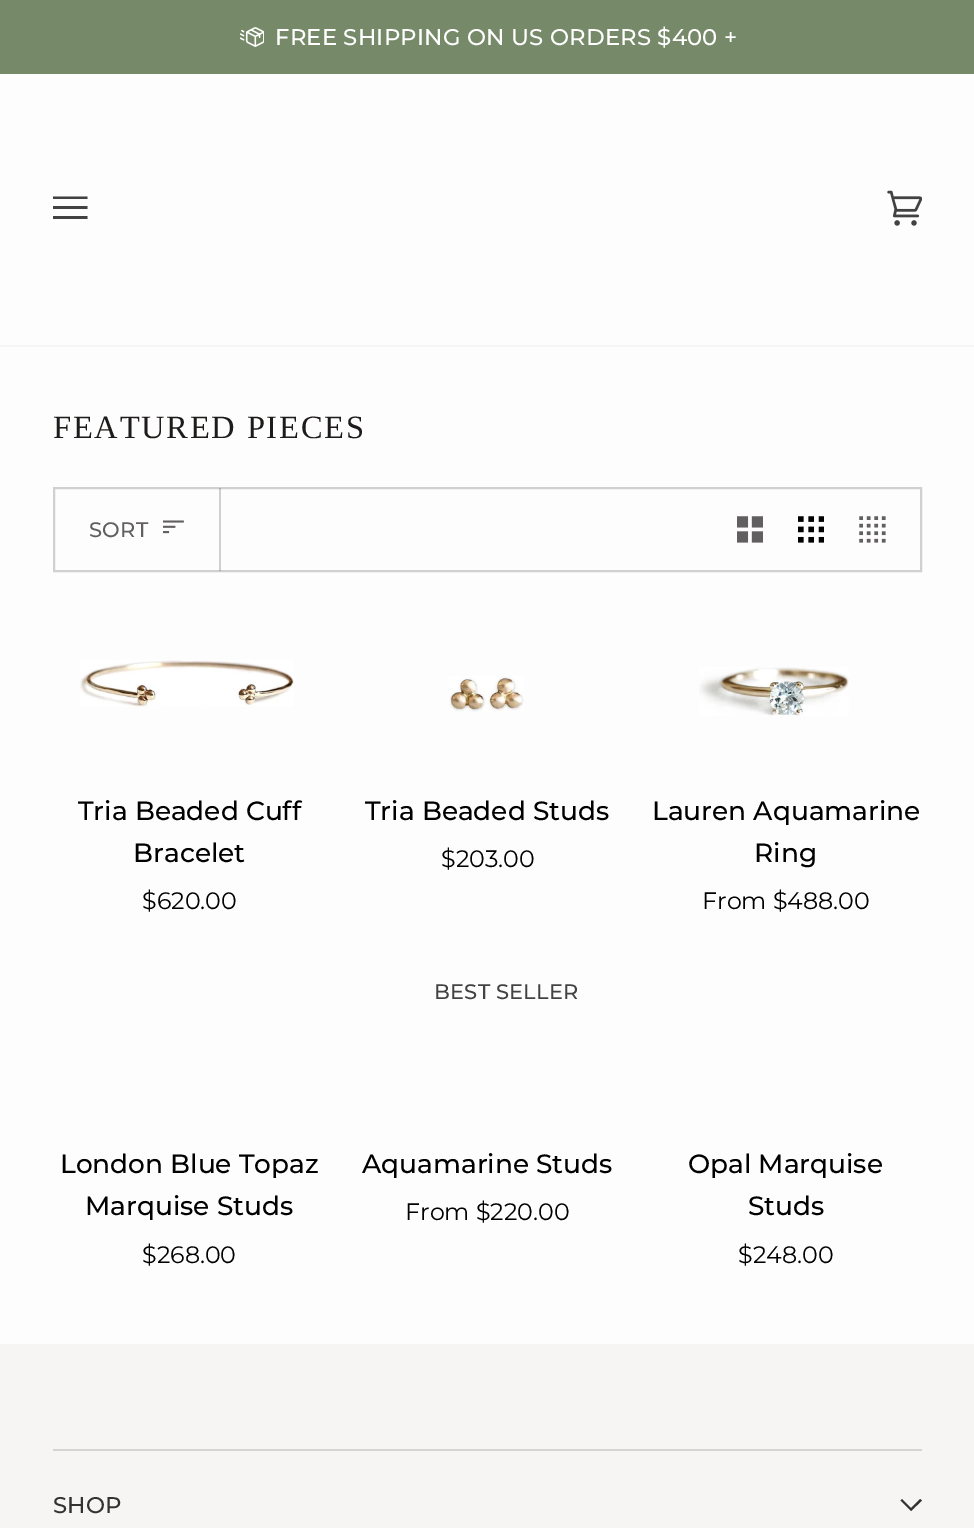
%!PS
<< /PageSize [974 1528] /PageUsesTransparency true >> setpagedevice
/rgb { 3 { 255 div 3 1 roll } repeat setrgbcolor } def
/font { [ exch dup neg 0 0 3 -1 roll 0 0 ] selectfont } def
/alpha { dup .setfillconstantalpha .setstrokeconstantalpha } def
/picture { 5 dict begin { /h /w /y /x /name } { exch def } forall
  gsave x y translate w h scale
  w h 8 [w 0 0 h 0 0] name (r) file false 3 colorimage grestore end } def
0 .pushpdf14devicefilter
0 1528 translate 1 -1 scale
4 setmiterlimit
254 253 253 rgb
0 0 974 1528 rectfill
118 138 106 rgb
0 0 974 74 rectfill
(img/1.rgb) 240 27 24 20 picture
247 245 244 rgb
0 345 974 2 rectfill
gsave
53 182 35 53 rectclip
66 66 66 rgb
52.5 196.5 moveto 87.5 196.5 lineto 87.5 199 lineto 52.5 199 lineto closepath 52.5 206 moveto 87.5 206 lineto 87.5 209 lineto 52.5 209 lineto closepath 52.5 216 moveto 87.5 216 lineto 87.5 219 lineto 52.5 219 lineto closepath fill
grestore
(img/2.rgb) 887 190 35 36 picture
209 208 208 rgb
2 setlinewidth
54 488 867 83 rectstroke
0.2 alpha
30 27 27 rgb
219 488 2 83 rectfill
1 alpha
(img/3.rgb) 163 520 21 14 picture
(img/4.rgb) 737 516 26 27 picture
(img/5.rgb) 798 516 26 27 picture
(img/6.rgb) 859 516 27 27 picture
(img/7.rgb) 80 660 214 47 picture
(img/8.rgb) 449 676 75 36 picture
(img/9.rgb) 699 667 150 49 picture
247 245 244 rgb
0 1344 974 184 rectfill
214 212 211 rgb
53 1449 869 2 rectfill
52 49 49 rgb
911 1508 moveto 920 1499 lineto 922 1500.5 lineto 911 1511 lineto 900.5 1500.5 lineto 902 1499 lineto closepath eofill
/Montserrat-Medium 22.7 font
255 255 255 rgb
275 45 moveto 0.2 0 (FREE SHIPPING ON US ORDERS $400 +) ashow
/LiberationSerif-Regular 32.5 font
30 27 27 rgb
53 438 moveto 1.75 0 (FEATURED PIECES) ashow
/Montserrat-Medium 21 font
97 95 95 rgb
89 537 moveto 0.2 0 (SORT) ashow
/Montserrat-Medium 26.4 font
0 0 0 rgb
78 820 moveto (Tria Beaded Cuff) show
133 862 moveto (Bracelet) show
/Montserrat-Regular 23.75 font
142 909 moveto ($620.00) show
/Montserrat-Medium 26.4 font
365 820 moveto (Tria Beaded Studs) show
/Montserrat-Regular 23.75 font
441 867 moveto ($203.00) show
/Montserrat-Medium 26.4 font
652 820 moveto (Lauren Aquamarine) show
754 862 moveto (Ring) show
/Montserrat-Regular 23.75 font
702 909 moveto (From $488.00) show
/Montserrat-Medium 26.4 font
60 1173 moveto (London Blue Topaz) show
85 1215 moveto (Marquise Studs) show
/Montserrat-Regular 23.75 font
142 1263 moveto ($268.00) show
/Montserrat-Medium 21 font
66 66 66 rgb
434 999 moveto 0.2 0 (BEST SELLER) ashow
/Montserrat-Medium 26.4 font
0 0 0 rgb
362 1173 moveto (Aquamarine Studs) show
/Montserrat-Regular 23.75 font
405 1220 moveto (From $220.00) show
/Montserrat-Medium 26.4 font
688 1173 moveto (Opal Marquise) show
748 1215 moveto (Studs) show
/Montserrat-Regular 23.75 font
738 1263 moveto ($248.00) show
/Montserrat-Medium 22.7 font
52 49 49 rgb
53 1513 moveto 0.2 0 (SHOP) ashow
.poppdf14devicefilter showpage
